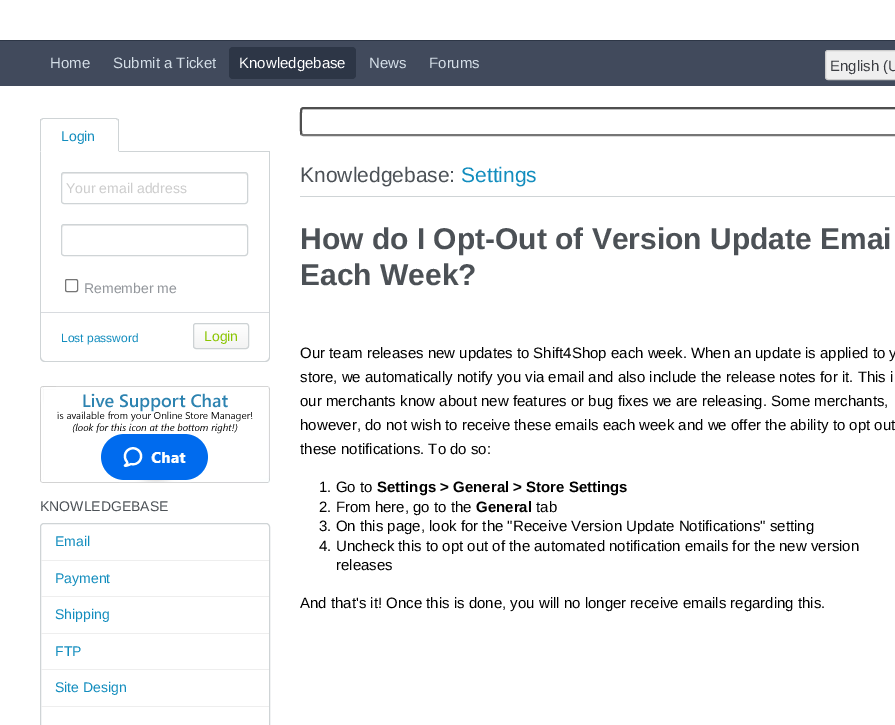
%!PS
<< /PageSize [895 725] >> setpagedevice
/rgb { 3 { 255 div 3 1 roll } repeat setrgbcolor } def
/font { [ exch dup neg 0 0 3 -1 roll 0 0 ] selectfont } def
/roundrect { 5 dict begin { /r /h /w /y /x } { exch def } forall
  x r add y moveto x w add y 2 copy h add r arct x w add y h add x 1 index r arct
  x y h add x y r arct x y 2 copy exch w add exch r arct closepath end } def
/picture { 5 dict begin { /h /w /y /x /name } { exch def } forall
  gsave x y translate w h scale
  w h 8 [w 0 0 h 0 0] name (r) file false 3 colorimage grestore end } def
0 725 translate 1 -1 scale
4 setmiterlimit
255 255 255 rgb
0 0 895 725 rectfill
65 74 92 rgb
0 41 895 45 rectfill
45 54 70 rgb
0 40 895 1 rectfill
229 47 127 32 4 roundrect fill
239 239 239 rgb
825.5 50.5 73 29 2.5 roundrect gsave fill grestore
204 204 204 rgb
stroke
207 212 214 rgb
119 151 151 1 rectfill
43 118 moveto 41 119 lineto 42 120 lineto 43 119 lineto 116 119 lineto 117 120 lineto 118 119 lineto 116 118 lineto closepath fill
119 152 moveto 119 121 lineto 119 120 119 119 118 119 curveto 117.5 119.5 lineto 118 121 lineto 118 151 lineto closepath fill
255 255 255 rgb
119 152 moveto 118 151 lineto 41 151 lineto 40 152 lineto closepath fill
207 212 214 rgb
40 152 moveto 41 151 lineto 41 121 lineto 41.5 119.5 lineto 41 119 lineto 40 119 40 120 40 121 curveto closepath fill
40 152 moveto 270 152 lineto 270 357 lineto 270 360 268 362 265 362 curveto 45 362 lineto 42 362 40 360 40 357 curveto closepath 41 152 moveto 269 152 lineto 269 357 lineto 269 359 267 361 265 361 curveto 45 361 lineto 43 361 41 359 41 357 curveto closepath eofill
236 236 236 rgb
64 174 moveto 245 174 lineto 246 174 247 175 247 176 curveto 247 175 lineto 247 174 246 173 245 173 curveto 64 173 lineto 63 173 62 174 62 175 curveto 62 176 lineto 62 175 63 174 64 174 curveto closepath fill
207 212 214 rgb
61.5 172.5 186 31 2.5 roundrect stroke
236 236 236 rgb
64 226 moveto 245 226 lineto 246 226 247 227 247 228 curveto 247 227 lineto 247 226 246 225 245 225 curveto 64 225 lineto 63 225 62 226 62 227 curveto 62 228 lineto 62 227 63 226 64 226 curveto closepath fill
207 212 214 rgb
61.5 224.5 186 31 2.5 roundrect stroke
118 118 118 rgb
65.5 279.5 12 12 1.5 roundrect stroke
216 219 223 rgb
41 312 228 1 rectfill
gsave
193 323 56 26 3 roundrect clip newpath
gsave 193 324 moveto 249 324 lineto 249 348 lineto 193 348 lineto closepath clip newpath
<< /ShadingType 2 /ColorSpace /DeviceRGB /Coords [194 324 194 348] /Extend [true true] /Function << /FunctionType 2 /Domain [0 1] /C0 [1 1 1] /C1 [0.953 0.953 0.953] /N 1 >> >> shfill grestore
grestore
205 210 212 rgb
193.5 323.5 55 25 2.5 roundrect stroke
(img/1.rgb) 40 386 230 97 picture
207 212 214 rgb
40.5 523.5 229 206 3.5 roundrect stroke
[
  [41 560 228 1 238 238 238]
  [41 596 228 1 238 238 238]
  [41 633 228 1 238 238 238]
  [41 669 228 1 238 238 238]
  [41 706 228 1 238 238 238]
] { aload pop rgb rectfill } forall
236 236 236 rgb
303 110 moveto 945 110 lineto 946 110 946 110 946 111 curveto 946 110 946 109 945 109 curveto 303 109 lineto 302 109 302 110 302 111 curveto 302 110 302 110 303 110 curveto closepath fill
118 118 118 rgb
2 setlinewidth
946.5 108.5 moveto 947.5 109.5 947.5 133 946.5 134 curveto 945 135 lineto 303 135 lineto 301.5 134.5 lineto stroke
79 79 79 rgb
301.5 134.5 moveto 300.5 133.5 300.5 110 301.5 109 curveto 303 108 lineto 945 108 lineto 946.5 108.5 lineto stroke
207 212 214 rgb
300 196 595 1 rectfill
/LiberationSans-Regular 15 font
212 222 231 rgb
50 68 moveto (Home) show
113 68 moveto (Submit a Ticket) show
255 255 255 rgb
239 68 moveto (Knowledgebase) show
212 222 231 rgb
369 68 moveto (News) show
429 68 moveto (Forums) show
60 62 67 rgb
830 71 moveto (English \(U) show
/LiberationSans-Regular 14 font
18 141 190 rgb
61 141 moveto (Login) show
204 204 204 rgb
66 193 moveto (Your email address) show
146 150 155 rgb
84 293 moveto (Remember me) show
/LiberationSans-Regular 12 font
18 141 190 rgb
61 342 moveto (Lost password) show
/LiberationSans-Regular 14 font
138 197 0 rgb
204 341 moveto (Login) show
76 81 86 rgb
40 511 moveto (KNOWLEDGEBASE) show
18 141 190 rgb
[
  [(Email) 55 546]
  [(Payment) 55 583]
  [(Shipping) 55 619]
  [(FTP) 55 656]
  [(Site Design) 55 692]
] { aload pop moveto show } forall
/LiberationSans-Regular 21 font
76 81 86 rgb
300 182 moveto (Knowledgebase:) show
18 141 190 rgb
461 182 moveto (Settings) show
/LiberationSans-Bold 30 font
76 81 86 rgb
300 249 moveto (How do I Opt-Out of Version Update Emai) show
300 285 moveto (Each Week?) show
/LiberationSans-Regular 15 font
0 0 0 rgb
[
  [(Our team releases new updates to Shift4Shop each week. When an update is applied to y) 300 358]
  [(store, we automatically notify you via email and also include the release notes for it. This i) 300 382]
  [(our merchants know about new features or bug fixes we are releasing. Some merchants,) 300 406]
  [(however, do not wish to receive these emails each week and we offer the ability to opt out) 300 430]
  [(these notifications. To do so:) 300 454]
  [(1. Go to) 319 492]
] { aload pop moveto show } forall
/LiberationSans-Bold 15 font
377 492 moveto (Settings > General > Store Settings) show
/LiberationSans-Regular 15 font
319 512 moveto (2. From here, go to the) show
/LiberationSans-Bold 15 font
476 512 moveto (General) show
/LiberationSans-Regular 15 font
[
  [(tab) 536 512]
  [(3. On this page, look for the "Receive Version Update Notifications" setting) 319 531]
  [(4. Uncheck this to opt out of the automated notification emails for the new version) 319 551]
  [(releases) 336 570]
  [(And that's it! Once this is done, you will no longer receive emails regarding this.) 300 608]
] { aload pop moveto show } forall
showpage
